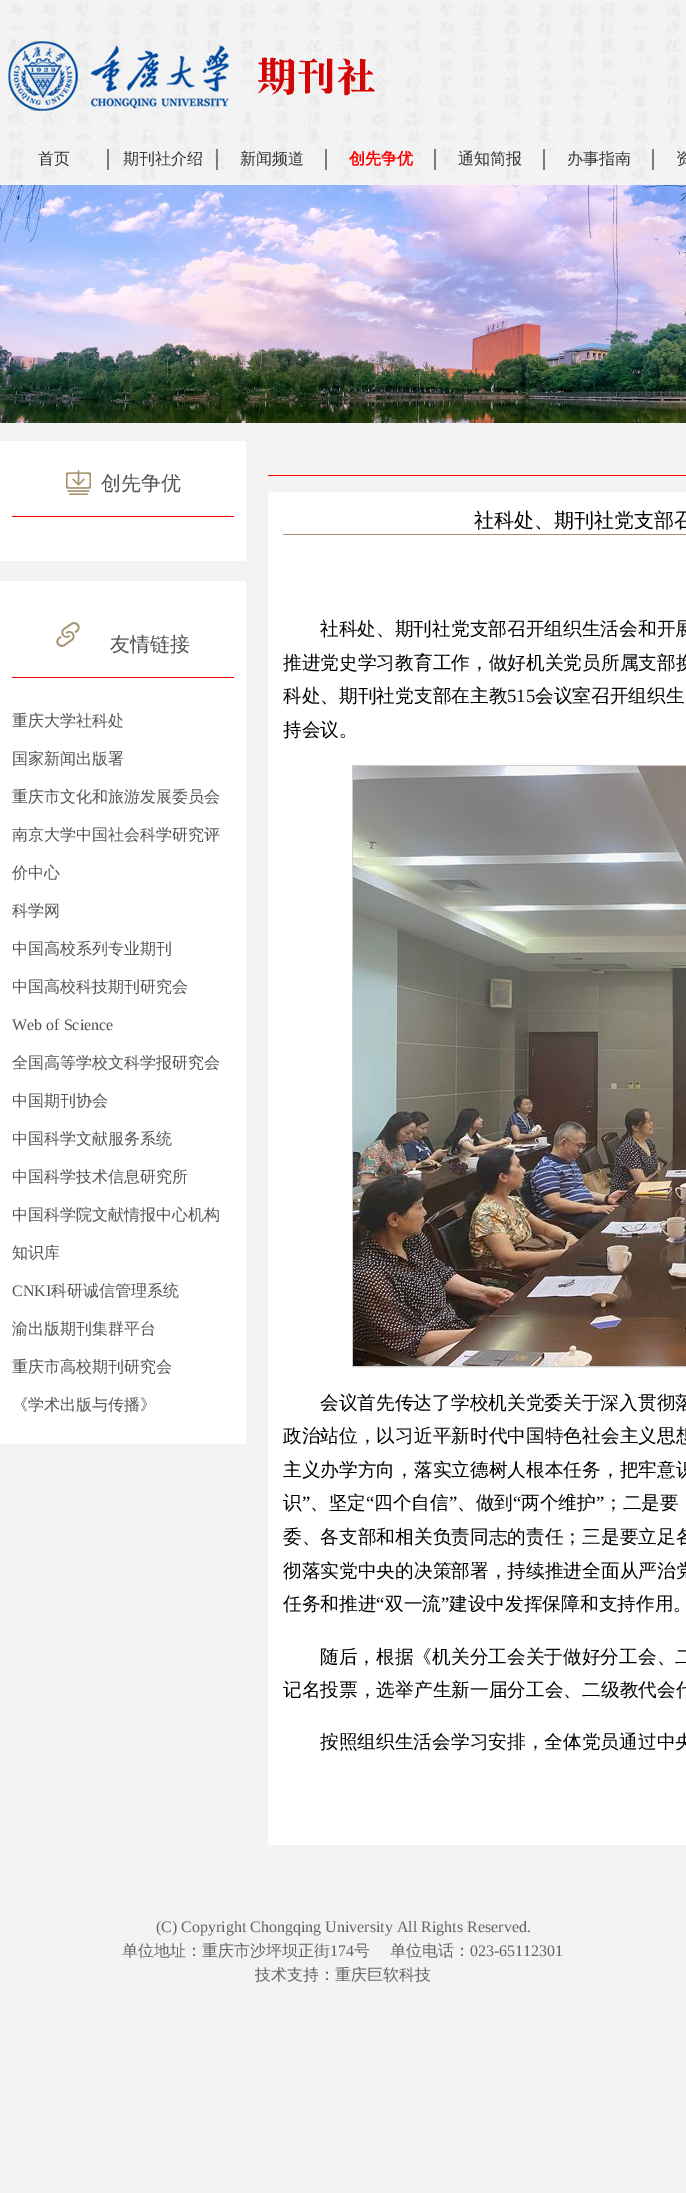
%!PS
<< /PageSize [686 2193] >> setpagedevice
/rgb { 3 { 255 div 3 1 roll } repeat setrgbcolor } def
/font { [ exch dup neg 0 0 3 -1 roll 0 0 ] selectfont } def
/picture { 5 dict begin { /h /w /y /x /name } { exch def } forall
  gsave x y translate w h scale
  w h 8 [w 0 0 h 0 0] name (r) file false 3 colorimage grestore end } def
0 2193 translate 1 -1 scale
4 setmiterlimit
243 243 243 rgb
0 0 686 2193 rectfill
(img/1.rgb) 8 0 675 185 picture
(img/2.rgb) 8 41 367 70 picture
[
  [107 149 2 21 125 125 125]
  [216 149 2 21 125 125 125]
  [325 149 2 21 125 125 125]
  [434 149 2 21 125 125 125]
  [543 149 2 21 125 125 125]
  [652 149 2 21 125 125 125]
] { aload pop rgb rectfill } forall
(img/3.rgb) 0 185 686 238 picture
255 255 255 rgb
0 441 246 120 rectfill
255 0 0 rgb
12 516 222 1 rectfill
(img/4.rgb) 66 470 25 25 picture
255 255 255 rgb
0 581 246 863 rectfill
255 0 0 rgb
12 677 222 1 rectfill
(img/5.rgb) 56 622 24 25 picture
[
  [268 475 418 1 255 0 0]
  [268 492 418 1353 255 255 255]
  [283 534 403 1 163 145 111]
] { aload pop rgb rectfill } forall
204 204 204 rgb
352.5 765.5 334 601 rectstroke
(img/6.rgb) 353 766 333 600 picture
/WenQuanYiZenHei-Medium 16 font
53 51 51 rgb
[
  [(首页) 38 164]
  [(期刊社介绍) 123 164]
  [(新闻频道) 240 164]
] { aload pop moveto show } forall
/WenQuanYiZenHei-Bold 16 font
255 0 0 rgb
349 164 moveto (创先争优) show
/WenQuanYiZenHei-Medium 16 font
53 51 51 rgb
[
  [(通知简报) 458 164]
  [(办事指南) 567 164]
  [(资) 676 164]
] { aload pop moveto show } forall
/WenQuanYiZenHei-Medium 20 font
83 83 83 rgb
101 490 moveto (创先争优) show
110 651 moveto (友情链接) show
/WenQuanYiZenHei-Medium 16 font
[
  [(重庆大学社科处) 12 726]
  [(国家新闻出版署) 12 764]
  [(重庆市文化和旅游发展委员会) 12 802]
  [(南京大学中国社会科学研究评) 12 840]
  [(价中心) 12 878]
  [(科学网) 12 916]
  [(中国高校系列专业期刊) 12 954]
  [(中国高校科技期刊研究会) 12 992]
] { aload pop moveto show } forall
/LiberationSerif-Regular 16 font
12 1030 moveto (Web of Science) show
/WenQuanYiZenHei-Medium 16 font
[
  [(全国高等学校文科学报研究会) 12 1068]
  [(中国期刊协会) 12 1106]
  [(中国科学文献服务系统) 12 1144]
  [(中国科学技术信息研究所) 12 1182]
  [(中国科学院文献情报中心机构) 12 1220]
  [(知识库) 12 1258]
] { aload pop moveto show } forall
/LiberationSerif-Regular 16 font
12 1296 moveto (CNKI) show
/WenQuanYiZenHei-Medium 16 font
[
  [(科研诚信管理系统) 51 1296]
  [(渝出版期刊集群平台) 12 1334]
  [(重庆市高校期刊研究会) 12 1372]
  [(《学术出版与传播》) 12 1410]
] { aload pop moveto show } forall
/WenQuanYiZenHei-Medium 20 font
0 0 0 rgb
474 527 moveto (社科处、期刊社党支部召) show
/WenQuanYiZenHei-Medium 18.7 font
[
  [(社科处、期刊社党支部召开组织生活会和开展) 320 635]
  [(推进党史学习教育工作，做好机关党员所属支部换) 283 669]
  [(科处、期刊社党支部在主教) 283 702]
] { aload pop moveto show } forall
/LiberationSerif-Regular 18.7 font
507 702 moveto (515) show
/WenQuanYiZenHei-Medium 18.7 font
[
  [(会议室召开组织生) 535 702]
  [(持会议。) 283 736]
  [(会议首先传达了学校机关党委关于深入贯彻落) 320 1409]
  [(政治站位，以习近平新时代中国特色社会主义思想) 283 1442]
  [(主义办学方向，落实立德树人根本任务，把牢意识) 283 1476]
  [(识) 283 1509]
] { aload pop moveto show } forall
/LiberationSerif-Regular 18.7 font
302 1509 moveto (”) show
/WenQuanYiZenHei-Medium 18.7 font
310 1509 moveto (、坚定) show
/LiberationSerif-Regular 18.7 font
366 1509 moveto (“) show
/WenQuanYiZenHei-Medium 18.7 font
374 1509 moveto (四个自信) show
/LiberationSerif-Regular 18.7 font
449 1509 moveto (”) show
/WenQuanYiZenHei-Medium 18.7 font
457 1509 moveto (、做到) show
/LiberationSerif-Regular 18.7 font
513 1509 moveto (“) show
/WenQuanYiZenHei-Medium 18.7 font
521 1509 moveto (两个维护) show
/LiberationSerif-Regular 18.7 font
596 1509 moveto (”) show
/WenQuanYiZenHei-Medium 18.7 font
[
  [(；二是要) 604 1509]
  [(委、各支部和相关负责同志的责任；三是要立足各) 283 1543]
  [(彻落实党中央的决策部署，持续推进全面从严治党) 283 1577]
  [(任务和推进) 283 1610]
] { aload pop moveto show } forall
/LiberationSerif-Regular 18.7 font
376 1610 moveto (“) show
/WenQuanYiZenHei-Medium 18.7 font
385 1610 moveto (双一流) show
/LiberationSerif-Regular 18.7 font
441 1610 moveto (”) show
/WenQuanYiZenHei-Medium 18.7 font
[
  [(建设中发挥保障和支持作用。) 449 1610]
  [(随后，根据《机关分工会关于做好分工会、二) 320 1663]
  [(记名投票，选举产生新一届分工会、二级教代会代) 283 1696]
  [(按照组织生活会学习安排，全体党员通过中央) 320 1748]
] { aload pop moveto show } forall
/LiberationSerif-Regular 16 font
102 101 101 rgb
156 1932 moveto (\(C\) Copyright Chongqing University All Rights Reserved.) show
/WenQuanYiZenHei-Medium 16 font
122 1956 moveto (单位地址：重庆市沙坪坝正街) show
/LiberationSerif-Regular 16 font
330 1956 moveto (174) show
/WenQuanYiZenHei-Medium 16 font
354 1956 moveto (号) show
390 1956 moveto (单位电话：) show
/LiberationSerif-Regular 16 font
470 1956 moveto (023-65112301) show
/WenQuanYiZenHei-Medium 16 font
255 1980 moveto (技术支持：重庆巨软科技) show
showpage
